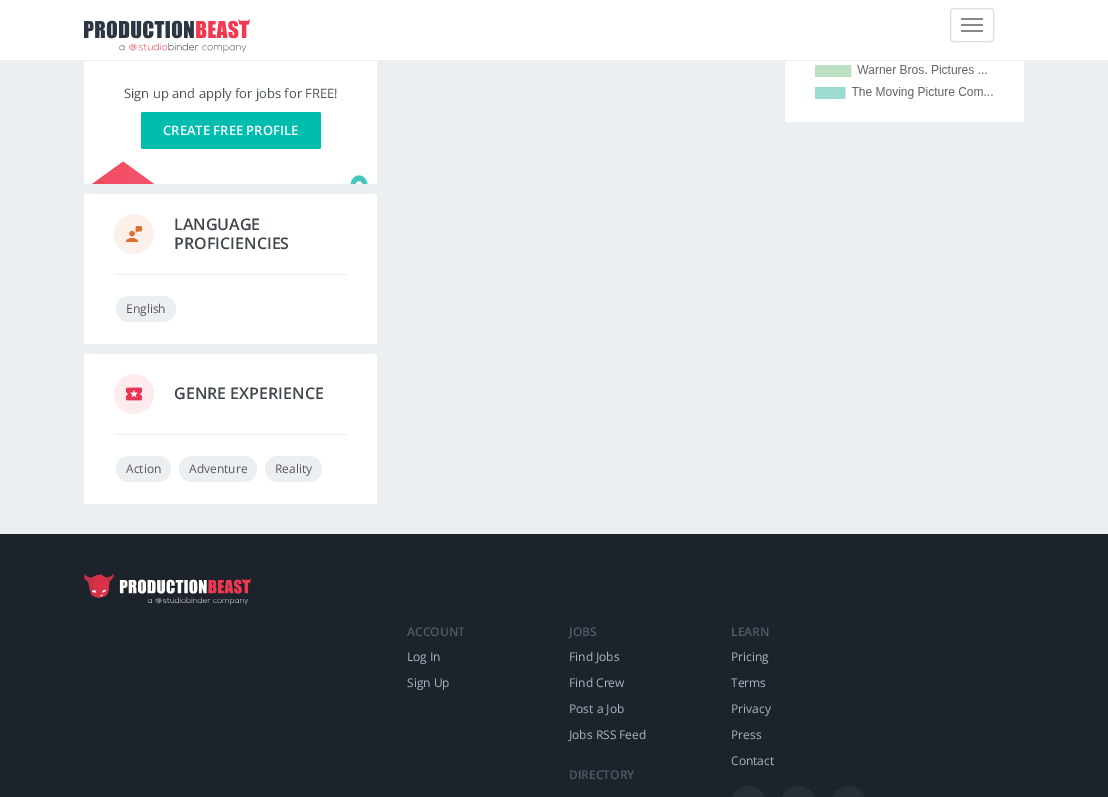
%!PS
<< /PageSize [1108 797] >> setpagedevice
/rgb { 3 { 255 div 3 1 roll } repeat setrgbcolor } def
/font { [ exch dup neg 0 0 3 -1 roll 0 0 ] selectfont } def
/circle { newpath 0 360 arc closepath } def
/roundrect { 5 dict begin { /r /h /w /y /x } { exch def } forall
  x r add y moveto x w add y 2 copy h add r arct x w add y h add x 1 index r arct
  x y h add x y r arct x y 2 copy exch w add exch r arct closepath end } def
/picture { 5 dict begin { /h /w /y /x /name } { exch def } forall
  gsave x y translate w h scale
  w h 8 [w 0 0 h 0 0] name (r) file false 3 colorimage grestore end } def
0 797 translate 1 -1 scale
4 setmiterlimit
235 239 242 rgb
0 0 1108 797 rectfill
255 255 255 rgb
785 -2 239 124 2 roundrect fill
0 0 1108 60 rectfill
237 239 242 rgb
785 60 239 1 rectfill
(img/1.rgb) 84 19 166 34 picture
221 221 221 rgb
950.5 8.5 43 33 3.5 roundrect stroke
136 136 136 rgb
961 18 22 2 1 roundrect fill
961 24 22 2 1 roundrect fill
961 30 22 2 1 roundrect fill
(img/2.rgb) 815 64 178 35 picture
(img/3.rgb) 84 61 293 123 picture
0 189 173 rgb
141 112 180 37 2 roundrect fill
255 255 255 rgb
84 194 293 150 2 roundrect fill
251 241 234 rgb
134 234 20 circle fill
(img/4.rgb) 126 226 16 16 picture
235 239 242 rgb
114 274 233 1 rectfill
116 296 60 26 13 roundrect fill
255 255 255 rgb
84 354 293 150 2 roundrect fill
253 235 238 rgb
134 394 20 circle fill
(img/5.rgb) 126 387 16 14 picture
235 239 242 rgb
114 434 233 1 rectfill
116 456 55 26 13 roundrect fill
179 456 78 26 13 roundrect fill
265 456 57 26 13 roundrect fill
29 35 43 rgb
0 534 1108 263 rectfill
(img/6.rgb) 84 574 167 31 picture
39 46 54 rgb
731 786 35 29 17.5 roundrect fill
781 786 35 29 17.5 roundrect fill
831 786 35 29 17.5 roundrect fill
/OpenSans-Regular 13 font
76 83 89 rgb
124 98 moveto (Sign up and apply for jobs for FREE!) show
/OpenSans-SemiBold 13 font
255 255 255 rgb
163 135 moveto (CREATE FREE PROFILE) show
/OpenSans-SemiBold 16 font
65 71 77 rgb
174 230 moveto (LANGUAGE) show
174 249 moveto (PROFICIENCIES) show
/OpenSans-Regular 12 font
89 89 89 rgb
126 313 moveto (English) show
/OpenSans-SemiBold 16 font
65 71 77 rgb
174 399 moveto (GENRE EXPERIENCE) show
/OpenSans-Regular 12 font
89 89 89 rgb
[
  [(Action) 126 473]
  [(Adventure) 189 473]
  [(Reality) 275 473]
] { aload pop moveto show } forall
/OpenSans-SemiBold 12 font
81 91 105 rgb
407 636 moveto (ACCOUNT) show
/OpenSans-Regular 12 font
168 181 191 rgb
407 661 moveto (Log In) show
407 687 moveto (Sign Up) show
/OpenSans-SemiBold 12 font
81 91 105 rgb
569 636 moveto (JOBS) show
/OpenSans-Regular 12 font
168 181 191 rgb
[
  [(Find Jobs) 569 661]
  [(Find Crew) 569 687]
  [(Post a Job) 569 713]
  [(Jobs RSS Feed) 569 739]
] { aload pop moveto show } forall
/OpenSans-SemiBold 12 font
81 91 105 rgb
569 779 moveto (DIRECTORY) show
731 636 moveto (LEARN) show
/OpenSans-Regular 12 font
168 181 191 rgb
[
  [(Pricing) 731 661]
  [(Terms) 731 687]
  [(Privacy) 731 713]
  [(Press) 731 739]
  [(Contact) 731 765]
] { aload pop moveto show } forall
showpage
